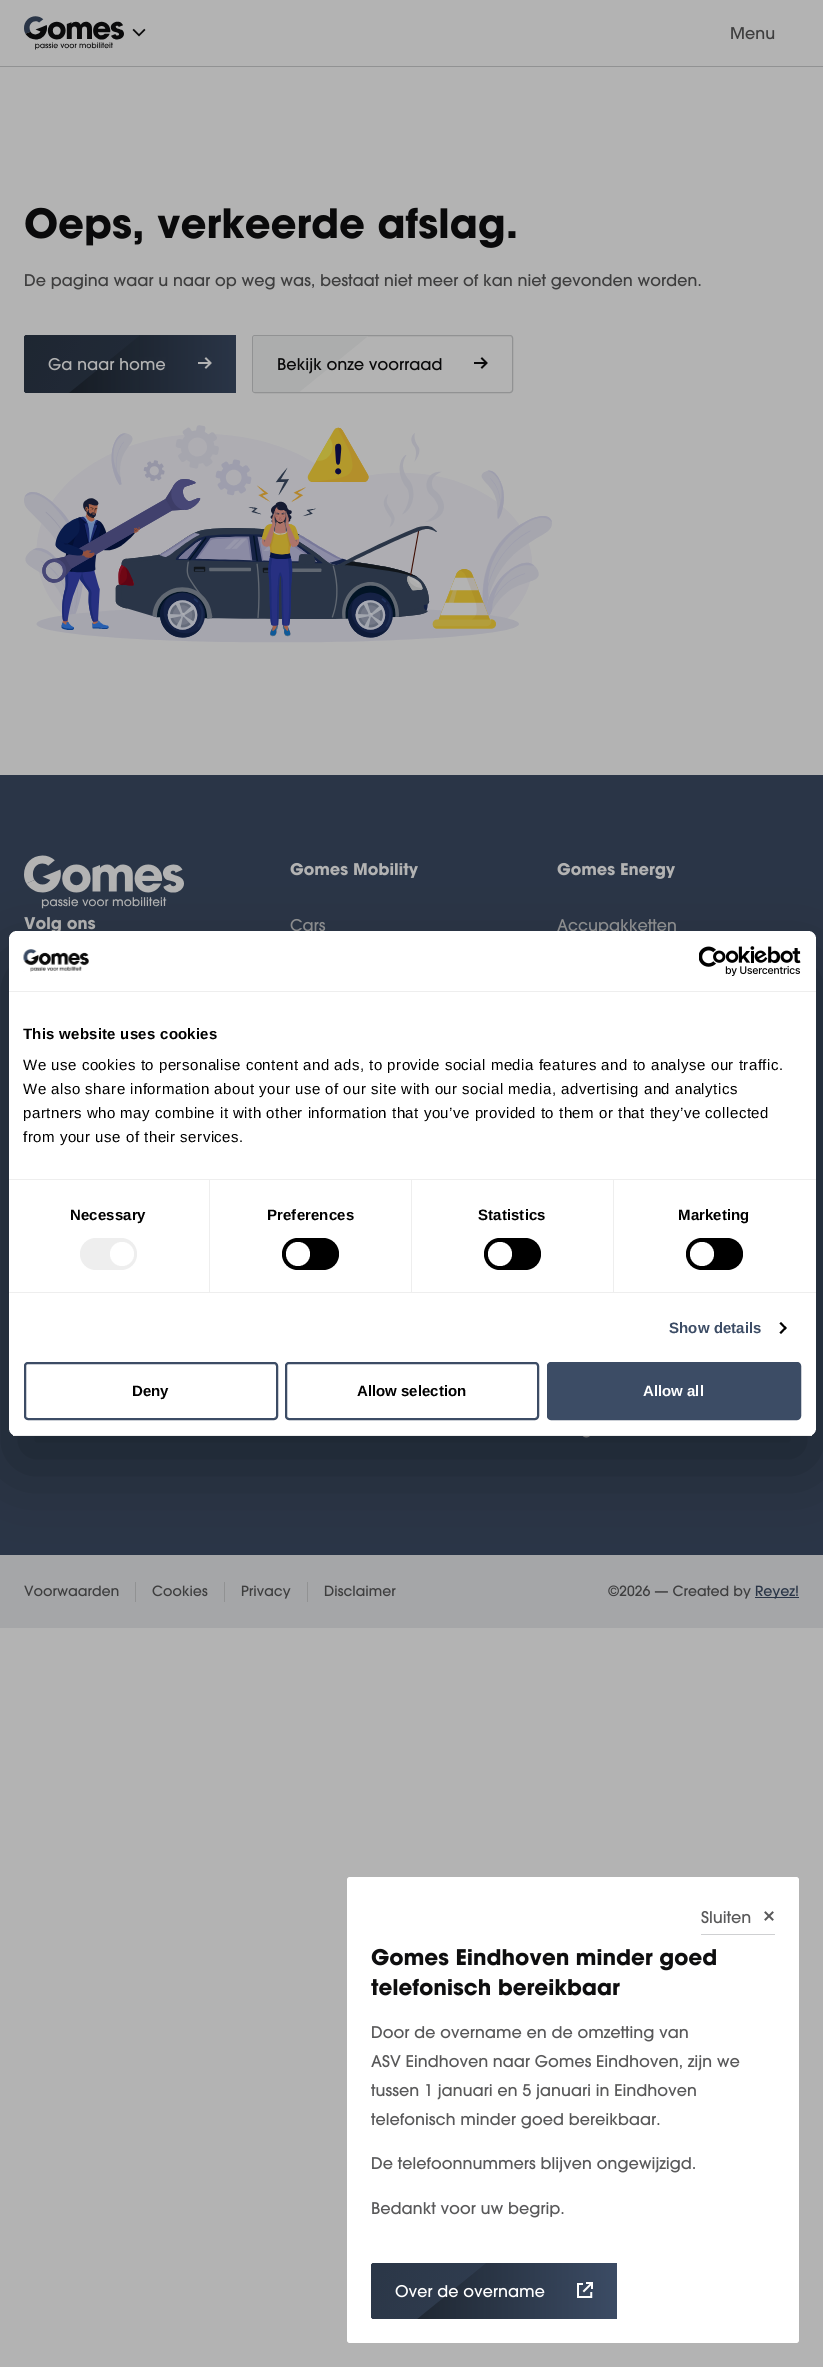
%!PS
<< /PageSize [823 2367] /PageUsesTransparency true >> setpagedevice
/rgb { 3 { 255 div 3 1 roll } repeat setrgbcolor } def
/font { [ exch dup neg 0 0 3 -1 roll 0 0 ] selectfont } def
/alpha { dup .setfillconstantalpha .setstrokeconstantalpha } def
/circle { newpath 0 360 arc closepath } def
/roundrect { 5 dict begin { /r /h /w /y /x } { exch def } forall
  x r add y moveto x w add y 2 copy h add r arct x w add y h add x 1 index r arct
  x y h add x y r arct x y 2 copy exch w add exch r arct closepath end } def
/shadow { 12 dict begin { /a /b /q /h /w /y /x } { exch def } forall gsave /was 0 def
  9 -2 -9 { dup b mul 4 div /e exch def 1 sub .425 mul 2.718 exch exp 1 add a .99 .min exch div /now exch def
    1 1 now sub 1 was sub div sub alpha /was now def
    w h .min e 2 mul add 0 gt { x e sub y e sub w e 2 mul add h e 2 mul add
      q e add b .6 mul add w h .min 2 div e add .min 0 .max roundrect fill } if } for grestore end } def
/picture { 5 dict begin { /h /w /y /x /name } { exch def } forall
  gsave x y translate w h scale
  w h 8 [w 0 0 h 0 0] name (r) file false 3 colorimage grestore end } def
0 .pushpdf14devicefilter
0 2367 translate 1 -1 scale
4 setmiterlimit
179 179 179 rgb
0 0 823 2367 rectfill
145 146 147 rgb
0 66 823 1 rectfill
(img/1.rgb) 24 16 100 34 picture
(img/2.rgb) 132 28 14 9 picture
(img/3.rgb) 731 27 44 13 picture
(img/4.rgb) 25 207 491 41 picture
(img/5.rgb) 25 274 676 16 picture
gsave 24 335 212 58 3 roundrect clip newpath
<< /ShadingType 2 /ColorSpace /DeviceRGB /Coords [24 364 236 364] /Extend [true true] /Function << /FunctionType 2 /Domain [0 1] /C0 [0.067 0.086 0.106] /C1 [0.165 0.208 0.278] /N 1 >> >> shfill grestore
(img/6.rgb) 24 335 115 58 picture
(img/7.rgb) 48 357 118 14 picture
(img/8.rgb) 198 357 14 12 picture
252.5 335.5 260 57 2.5 roundrect stroke
(img/9.rgb) 253 336 115 56 picture
(img/10.rgb) 474 357 14 12 picture
(img/11.rgb) 278 358 164 16 picture
(img/12.rgb) 24 425 528 218 picture
42 53 71 rgb
0 775 823 780 rectfill
(img/13.rgb) 24 855 160 54 picture
(img/14.rgb) 24 917 72 14 picture
(img/15.rgb) 290 862 128 16 picture
(img/16.rgb) 290 918 36 13 picture
(img/17.rgb) 557 862 118 17 picture
(img/18.rgb) 557 919 119 12 picture
(img/19.rgb) 582 1436 8 2 picture
165 166 168 rgb
0 1555 823 73 rectfill
(img/20.rgb) 24 1585 95 12 picture
145 146 147 rgb
135 1582 1 20 rectfill
(img/21.rgb) 152 1585 56 12 picture
224 1582 1 20 rectfill
(img/22.rgb) 241 1585 50 14 picture
307 1582 1 20 rectfill
(img/23.rgb) 324 1585 72 12 picture
(img/24.rgb) 608 1585 143 14 picture
42 53 71 rgb
755 1597 44 1 rectfill
(img/25.rgb) 755 1585 43 14 picture
0 0 0 rgb
9 963 807 505 8 34 0.3 shadow
255 255 255 rgb
9 931 807 505 8 roundrect fill
238 238 238 rgb
9 991 807 1 rectfill
(img/26.rgb) 23 949 66 23 picture
(img/27.rgb) 699 946 102 30 picture
[
  [9 1179 807 1 238 238 238]
  [9 1292 807 1 238 238 238]
  [209 1180 1 112 238 238 238]
] { aload pop rgb rectfill } forall
80 1238 57 32 16 roundrect fill
255 255 255 rgb
122 1254 12 circle fill
238 238 238 rgb
411 1180 1 112 rectfill
0 0 0 rgb
282 1238 57 32 16 roundrect fill
255 255 255 rgb
298 1254 12 circle fill
238 238 238 rgb
613 1180 1 112 rectfill
0 0 0 rgb
484 1238 57 32 16 roundrect fill
255 255 255 rgb
500 1254 12 circle fill
0 0 0 rgb
686 1238 57 32 16 roundrect fill
255 255 255 rgb
702 1254 12 circle fill
0 0 0 rgb
781 1322 moveto 786.5 1328 lineto 785.5 1329.5 lineto 779.5 1323.5 lineto closepath fill
785.5 1326.5 moveto 786.5 1328 lineto 781 1334 lineto 779.5 1332.5 lineto closepath fill
gsave
9 931 807 505 8 roundrect clip newpath
238 238 238 rgb
9 1435 807 1 rectfill
grestore
60 76 101 rgb
2 setlinewidth
25 1363 252 56 3 roundrect stroke
286 1363 252 56 3 roundrect stroke
548 1363 252 56 3 roundrect gsave fill grestore
stroke
255 255 255 rgb
347 1877 452 466 3 roundrect fill
(img/28.rgb) 701 1911 50 13 picture
(img/29.rgb) 764 1911 10 10 picture
207 208 210 rgb
701 1934 74 1 rectfill
(img/30.rgb) 371 1948 198 18 picture
(img/31.rgb) 576 1949 140 22 picture
(img/32.rgb) 371 1978 249 18 picture
(img/33.rgb) 372 2026 316 16 picture
(img/34.rgb) 371 2055 117 13 picture
(img/35.rgb) 493 2054 98 14 picture
(img/36.rgb) 597 2055 143 16 picture
(img/37.rgb) 371 2084 325 16 picture
(img/38.rgb) 371 2113 289 16 picture
(img/39.rgb) 372 2157 323 16 picture
(img/40.rgb) 372 2202 192 16 picture
gsave 371 2263 246 56 3 roundrect clip newpath
<< /ShadingType 2 /ColorSpace /DeviceRGB /Coords [371 2291 617 2291] /Extend [true true] /Function << /FunctionType 2 /Domain [0 1] /C0 [0.094 0.122 0.153] /C1 [0.235 0.298 0.396] /N 1 >> >> shfill grestore
(img/41.rgb) 371 2263 115 56 picture
(img/42.rgb) 577 2282 16 16 picture
(img/43.rgb) 395 2284 150 14 picture
/LiberationSans-Bold 15 font
0 0 0 rgb
23 1039 moveto 0.25 0 (This website uses cookies) ashow
/LiberationSans-Regular 15 font
23 1070 moveto 0.5 0 (We use cookies to personalise content and ads, to provide social media features and to analyse our traffic.) ashow
23 1094 moveto 0.5 0 (We also share information about your use of our site with our social media, advertising and analytics) ashow
23 1118 moveto 0.5 0 (partners who may combine it with other information that you’ve provided to them or that they’ve collected) ashow
23 1142 moveto 0.5 0 (from your use of their services.) ashow
/LiberationSans-Bold 15 font
70 1220 moveto 0.1 0 (Necessary) ashow
267 1220 moveto 0.1 0 (Preferences) ashow
478 1220 moveto 0.1 0 (Statistics) ashow
678 1220 moveto 0.1 0 (Marketing) ashow
60 76 101 rgb
669 1333 moveto 0.1 0 (Show details) ashow
0 0 0 rgb
132 1396 moveto (Deny) show
357 1396 moveto (Allow selection) show
255 255 255 rgb
643 1396 moveto (Allow all) show
.poppdf14devicefilter showpage
